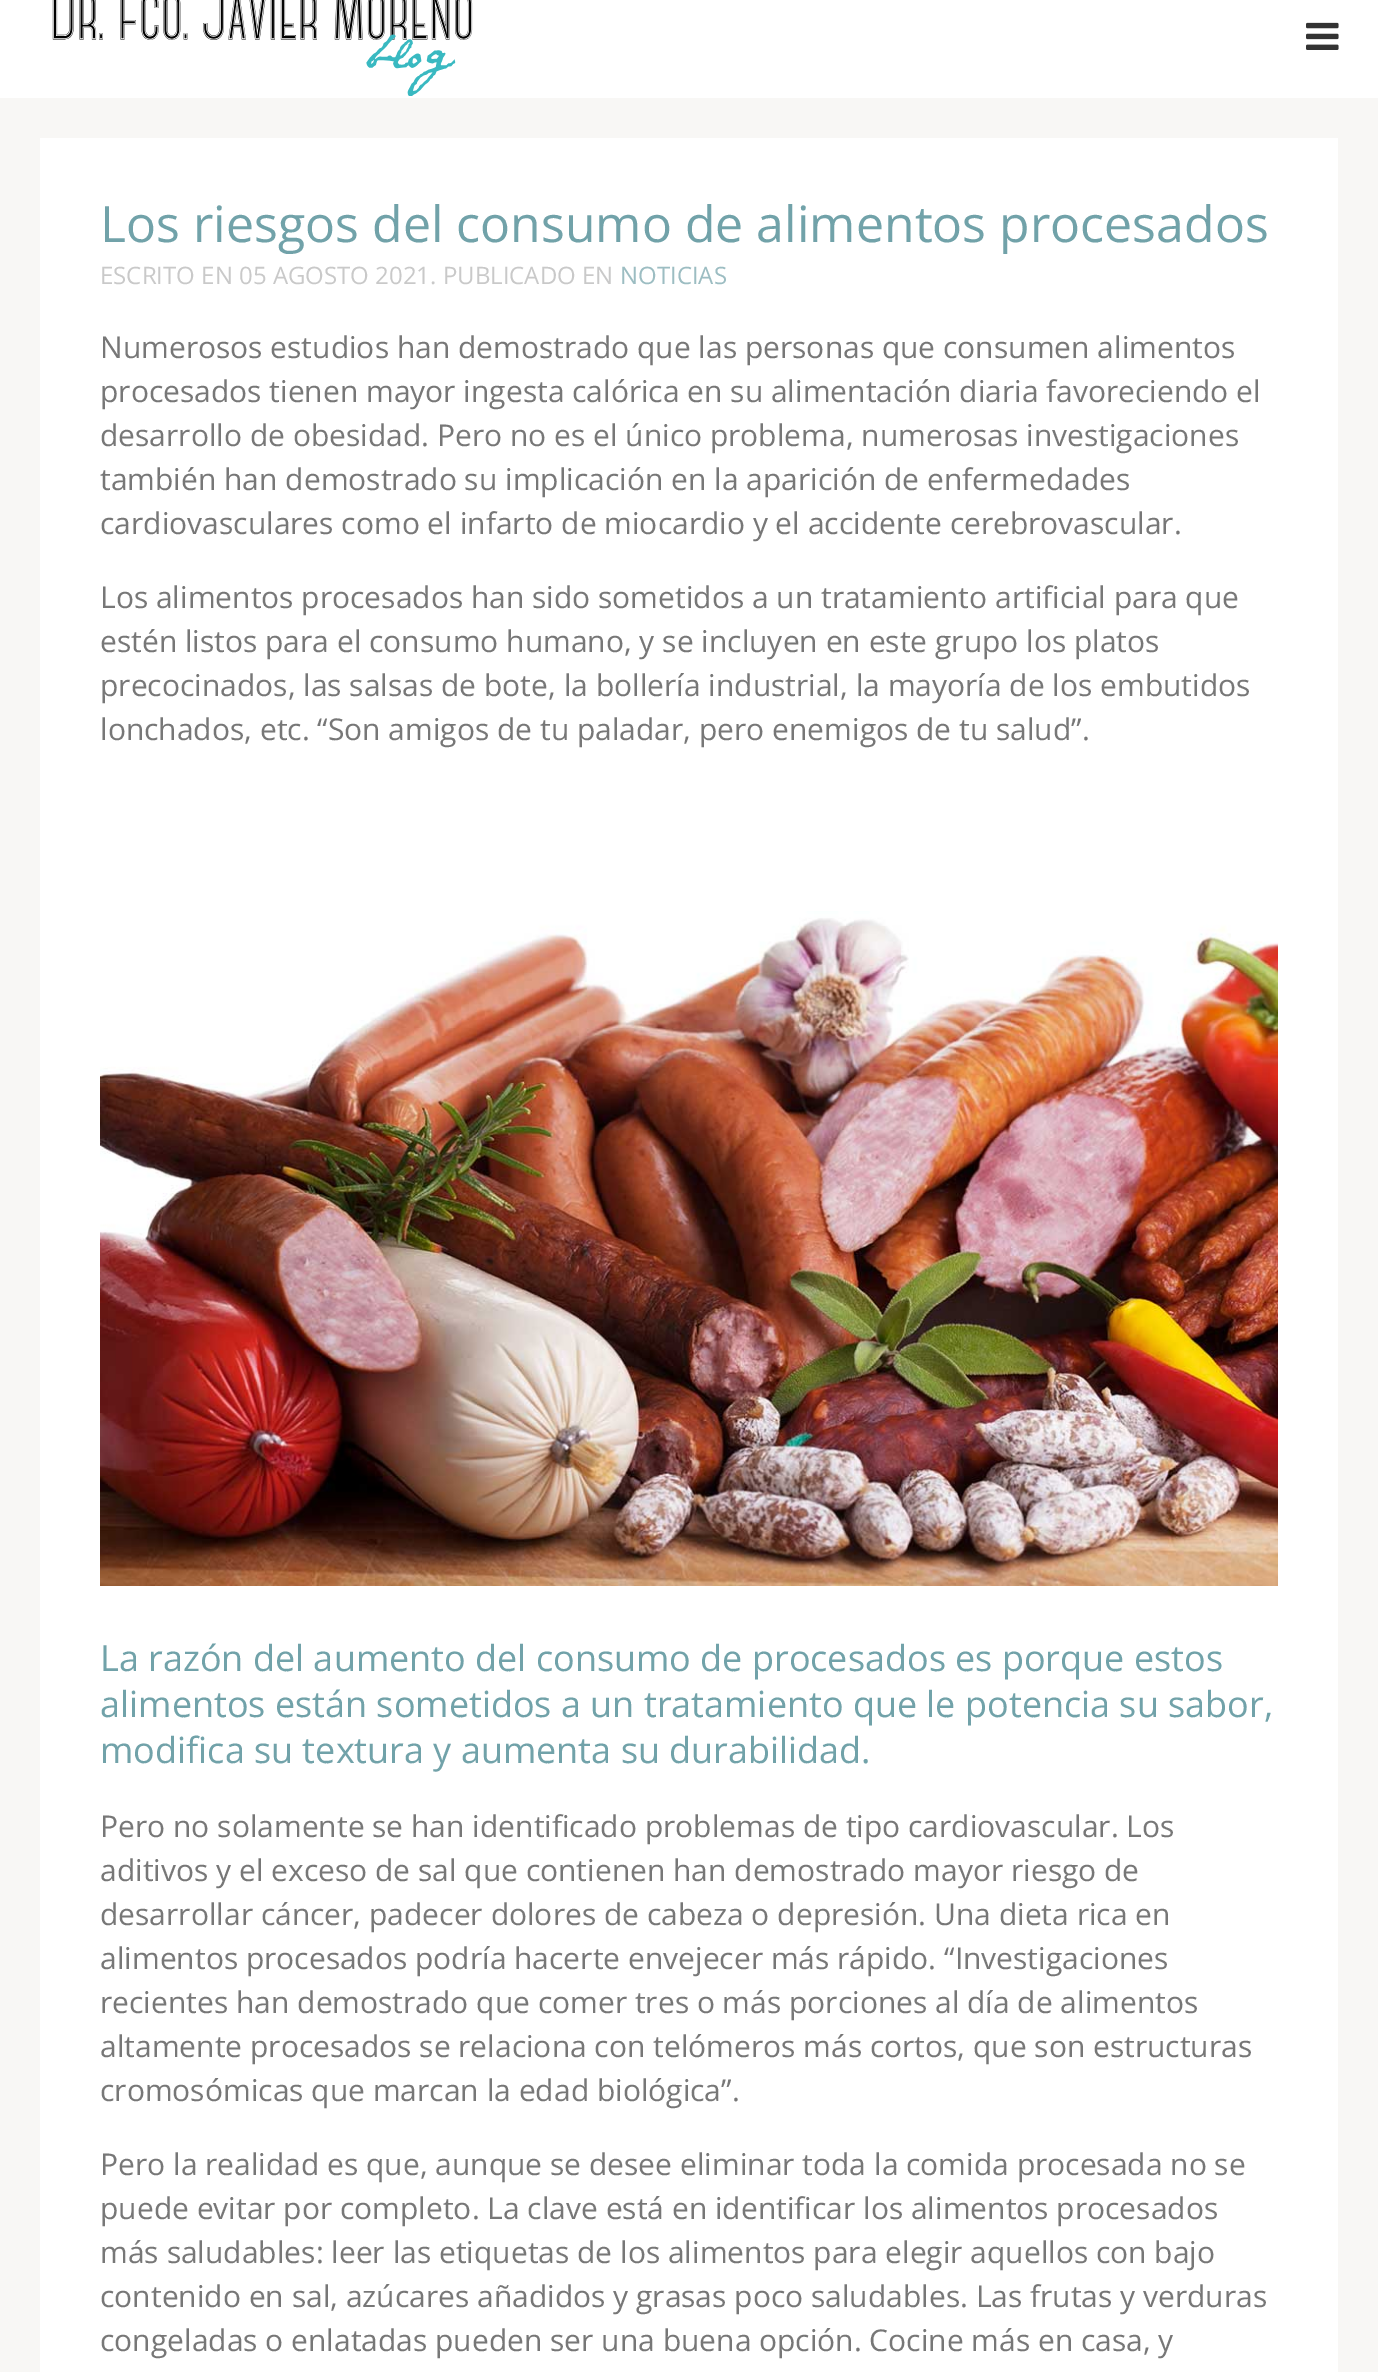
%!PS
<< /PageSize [1378 2372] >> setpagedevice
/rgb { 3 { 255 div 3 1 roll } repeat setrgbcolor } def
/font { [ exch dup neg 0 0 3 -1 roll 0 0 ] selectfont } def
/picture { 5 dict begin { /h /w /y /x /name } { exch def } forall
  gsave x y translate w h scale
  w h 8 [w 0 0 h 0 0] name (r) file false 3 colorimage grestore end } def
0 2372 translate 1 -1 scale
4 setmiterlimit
255 255 255 rgb
0 0 1378 2372 rectfill
(img/1.rgb) 52 0 421 96 picture
(img/2.rgb) 1306 22 33 28 picture
248 247 245 rgb
0 98 1378 2274 rectfill
255 255 255 rgb
40 138 1298 2234 rectfill
(img/3.rgb) 100 911 1178 675 picture
/OpenSans-Regular 50 font
113 162 169 rgb
100 242 moveto (Los riesgos del consumo de alimentos procesados) show
/OpenSans-Regular 24 font
201 201 201 rgb
100 284 moveto (ESCRITO EN 05 AGOSTO 2021. PUBLICADO EN) show
156 189 194 rgb
620 284 moveto (NOTICIAS) show
/OpenSans-Regular 30 font
119 119 119 rgb
[
  [(Numerosos estudios han demostrado que las personas que consumen alimentos) 100 358]
  [(procesados tienen mayor ingesta calórica en su alimentación diaria favoreciendo el) 100 402]
  [(desarrollo de obesidad. Pero no es el único problema, numerosas investigaciones) 100 446]
  [(también han demostrado su implicación en la aparición de enfermedades) 100 490]
  [(cardiovasculares como el infarto de miocardio y el accidente cerebrovascular.) 100 534]
  [(Los alimentos procesados han sido sometidos a un tratamiento artificial para que) 100 608]
  [(estén listos para el consumo humano, y se incluyen en este grupo los platos) 100 652]
  [(precocinados, las salsas de bote, la bollería industrial, la mayoría de los embutidos) 100 696]
  [(lonchados, etc. “Son amigos de tu paladar, pero enemigos de tu salud”.) 100 740]
] { aload pop moveto show } forall
/OpenSans-Regular 36 font
113 162 169 rgb
[
  [(La razón del aumento del consumo de procesados es porque estos) 100 1671]
  [(alimentos están sometidos a un tratamiento que le potencia su sabor,) 100 1717]
  [(modifica su textura y aumenta su durabilidad.) 100 1763]
] { aload pop moveto show } forall
/OpenSans-Regular 30 font
119 119 119 rgb
[
  [(Pero no solamente se han identificado problemas de tipo cardiovascular. Los) 100 1837]
  [(aditivos y el exceso de sal que contienen han demostrado mayor riesgo de) 100 1881]
  [(desarrollar cáncer, padecer dolores de cabeza o depresión. Una dieta rica en) 100 1925]
  [(alimentos procesados podría hacerte envejecer más rápido. “Investigaciones) 100 1969]
  [(recientes han demostrado que comer tres o más porciones al día de alimentos) 100 2013]
  [(altamente procesados se relaciona con telómeros más cortos, que son estructuras) 100 2057]
  [(cromosómicas que marcan la edad biológica”.) 100 2101]
  [(Pero la realidad es que, aunque se desee eliminar toda la comida procesada no se) 100 2175]
  [(puede evitar por completo. La clave está en identificar los alimentos procesados) 100 2219]
  [(más saludables: leer las etiquetas de los alimentos para elegir aquellos con bajo) 100 2263]
  [(contenido en sal, azúcares añadidos y grasas poco saludables. Las frutas y verduras) 100 2307]
  [(congeladas o enlatadas pueden ser una buena opción. Cocine más en casa, y) 100 2351]
] { aload pop moveto show } forall
showpage
